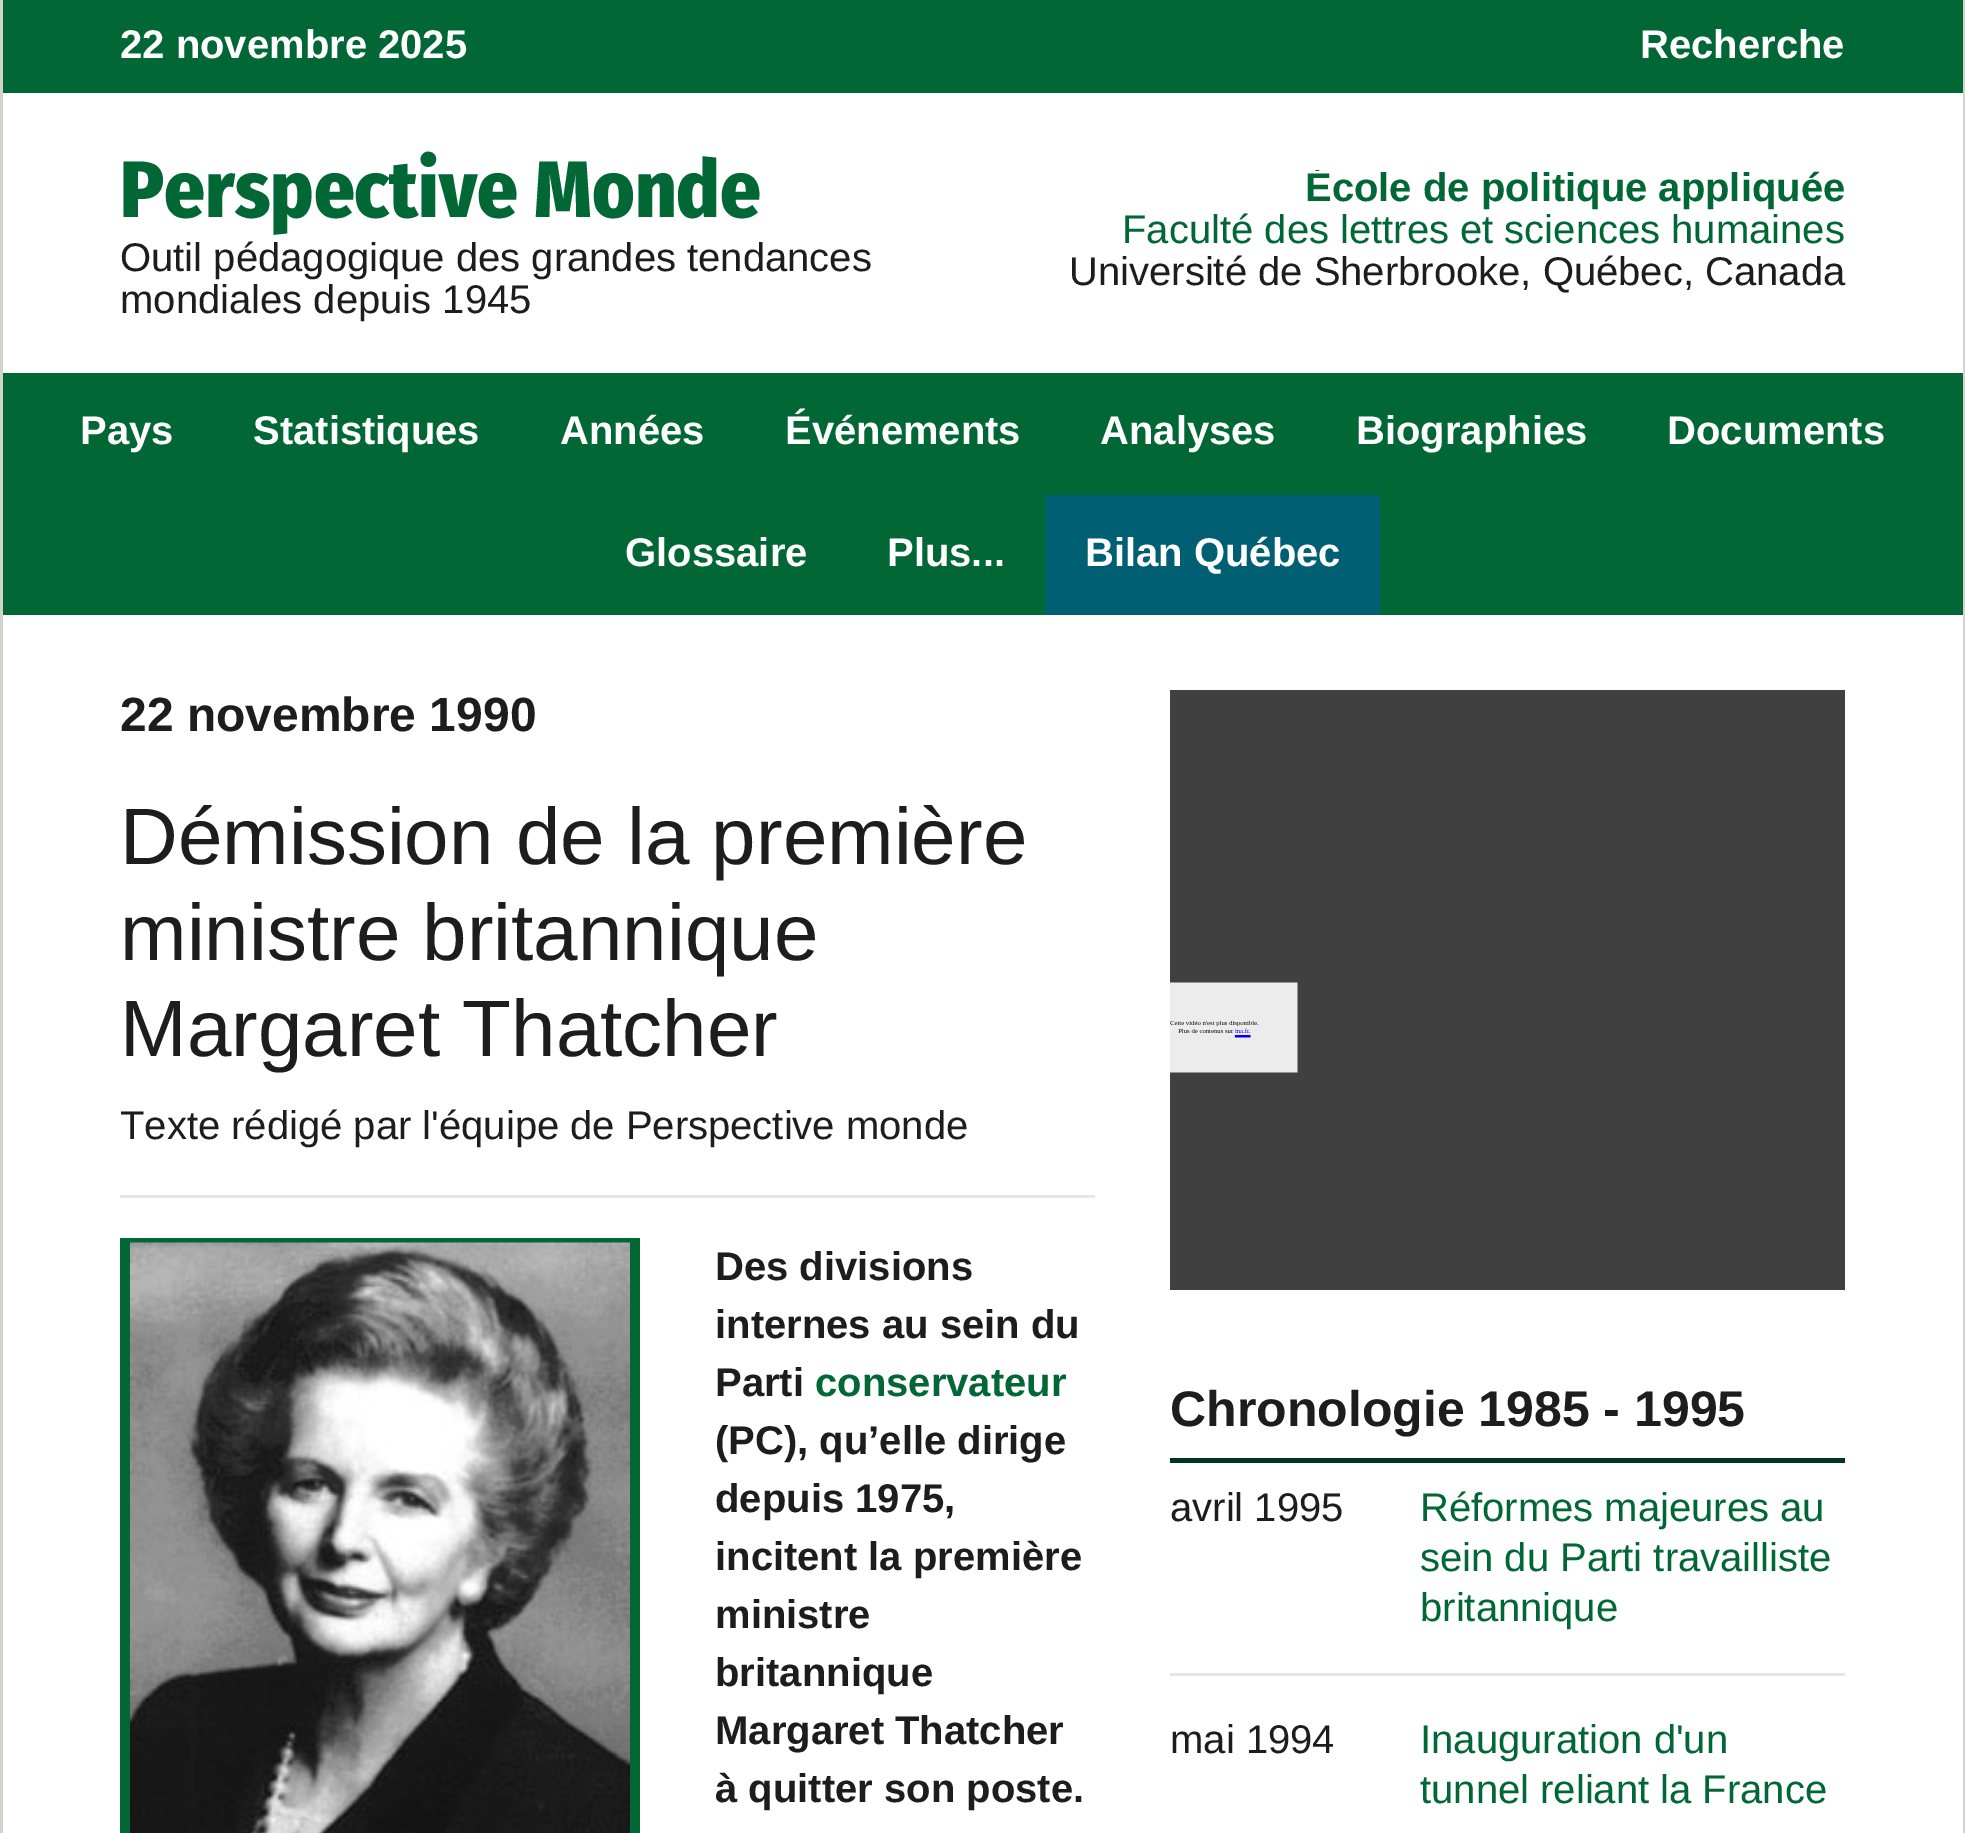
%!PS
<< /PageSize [1965 1833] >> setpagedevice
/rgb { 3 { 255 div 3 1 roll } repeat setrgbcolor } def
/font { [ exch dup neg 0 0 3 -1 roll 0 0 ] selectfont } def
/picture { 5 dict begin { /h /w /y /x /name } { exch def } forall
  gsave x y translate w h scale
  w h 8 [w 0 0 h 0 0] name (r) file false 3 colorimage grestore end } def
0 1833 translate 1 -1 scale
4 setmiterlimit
255 255 255 rgb
0 0 1965 1833 rectfill
[
  [1963 0 2 1833 210 212 201]
  [0 0 3 1833 210 212 201]
  [3 0 1960 93 1 103 53]
  [3 373 1960 242 1 103 53]
  [1045 495 335 120 0 95 114]
  [120 1195 975 3 230 230 230]
  [120 1238 520 595 1 103 53]
] { aload pop rgb rectfill } forall
(img/1.rgb) 130 1242 500 591 picture
(img/2.rgb) 1170 690 675 600 picture
0 54 29 rgb
1170 1458 675 5 rectfill
230 230 230 rgb
1170 1673 675 3 rectfill
/LiberationSans-Bold 40 font
255 255 255 rgb
120 58 moveto (22 novembre 2025) show
1640 58 moveto (Recherche) show
/FiraSansCondensed-ExtraBold 80 font
1 103 53 rgb
120 217 moveto (Perspective Monde) show
/LiberationSans-Regular 40 font
29 29 29 rgb
120 271 moveto (Outil pédagogique des grandes tendances) show
120 313 moveto (mondiales depuis 1945) show
gsave
983 170 900 125 rectclip
/LiberationSans-Bold 40 font
1 103 53 rgb
1305 201 moveto (École de politique appliquée) show
grestore
1 103 53 rgb
1122 243 moveto (Faculté des lettres et sciences humaines) show
29 29 29 rgb
1069 285 moveto (Université de Sherbrooke, Québec, Canada) show
/LiberationSans-Bold 40 font
255 255 255 rgb
[
  [(Pays) 80 444]
  [(Statistiques) 253 444]
  [(Années) 560 444]
  [(Événements) 785 444]
  [(Analyses) 1100 444]
  [(Biographies) 1356 444]
  [(Documents) 1667 444]
  [(Glossaire) 625 566]
  [(Plus...) 887 566]
  [(Bilan Québec) 1085 566]
] { aload pop moveto show } forall
/LiberationSans-Bold 48 font
29 29 29 rgb
120 731 moveto (22 novembre 1990) show
/LiberationSans-Regular 80 font
[
  [(Démission de la première) 120 864]
  [(ministre britannique) 120 960]
  [(Margaret Thatcher) 120 1056]
] { aload pop moveto show } forall
/LiberationSans-Regular 40 font
120 1139 moveto (Texte rédigé par l'équipe de Perspective monde) show
/LiberationSans-Bold 40 font
[
  [(Des divisions) 715 1280]
  [(internes au sein du) 715 1338]
  [(Parti) 715 1396]
] { aload pop moveto show } forall
1 103 53 rgb
815 1396 moveto (conservateur) show
29 29 29 rgb
[
  [(\(PC\), qu’elle dirige) 715 1454]
  [(depuis 1975,) 715 1512]
  [(incitent la première) 715 1570]
  [(ministre) 715 1628]
  [(britannique) 715 1686]
  [(Margaret Thatcher) 715 1744]
  [(à quitter son poste.) 715 1802]
] { aload pop moveto show } forall
/LiberationSans-Bold 50 font
1170 1426 moveto (Chronologie 1985 - 1995) show
/LiberationSans-Regular 40 font
1170 1521 moveto (avril 1995) show
1 103 53 rgb
[
  [(Réformes majeures au) 1420 1521]
  [(sein du Parti travailliste) 1420 1571]
  [(britannique) 1420 1621]
] { aload pop moveto show } forall
29 29 29 rgb
1170 1753 moveto (mai 1994) show
1 103 53 rgb
1420 1753 moveto (Inauguration d'un) show
1420 1803 moveto (tunnel reliant la France) show
showpage
